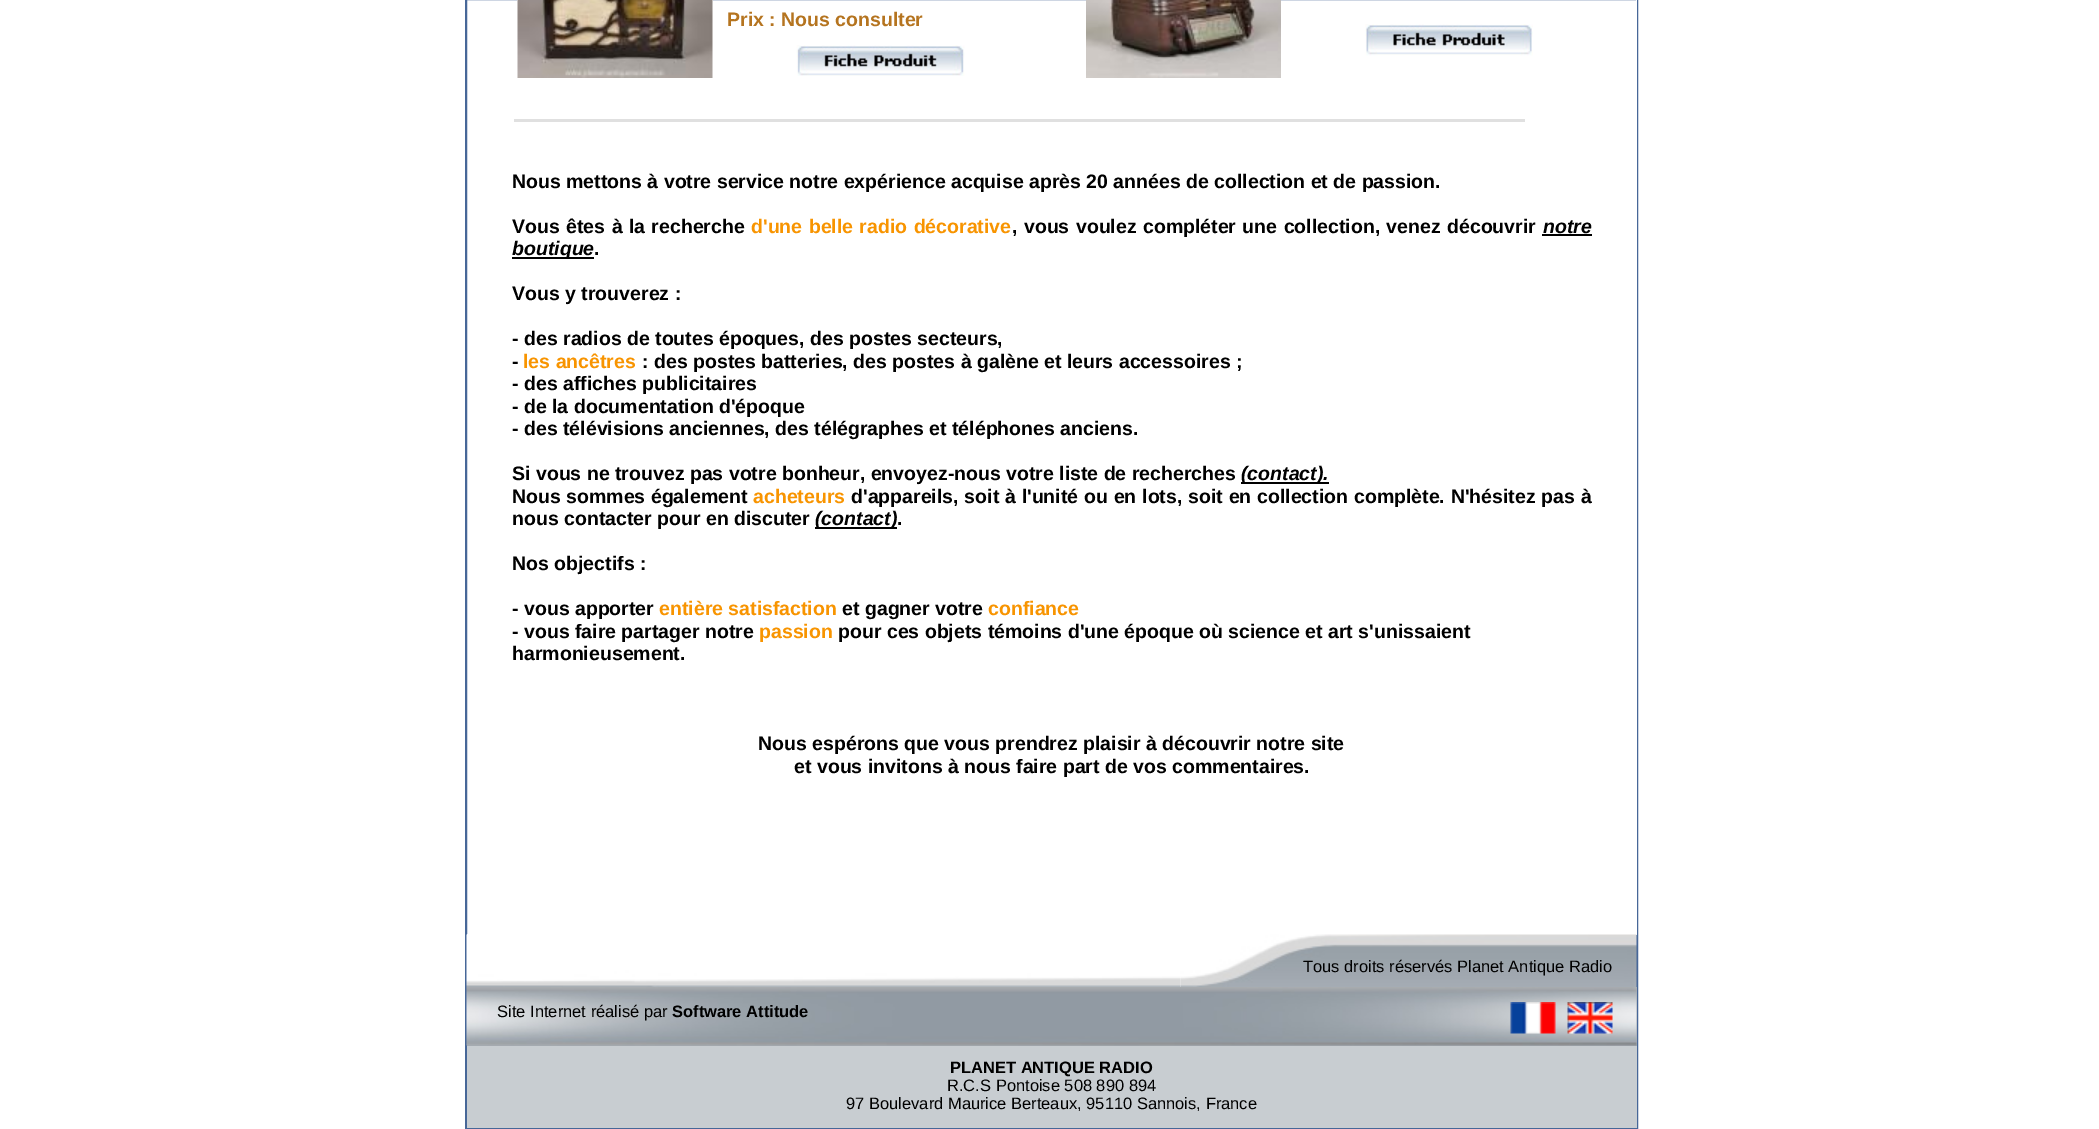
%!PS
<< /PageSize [2099 1129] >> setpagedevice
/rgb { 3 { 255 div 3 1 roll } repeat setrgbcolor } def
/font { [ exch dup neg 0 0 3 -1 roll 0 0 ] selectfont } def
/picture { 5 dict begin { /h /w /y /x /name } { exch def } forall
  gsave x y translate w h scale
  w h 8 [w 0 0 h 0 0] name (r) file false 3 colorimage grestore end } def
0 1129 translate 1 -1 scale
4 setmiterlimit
255 255 255 rgb
0 0 2099 1129 rectfill
71 103 152 rgb
2 setlinewidth
466 -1 1171 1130 rectstroke
255 255 255 rgb
1636 0 1 935 rectfill
(img/1.rgb) 517 0 196 78 picture
(img/2.rgb) 796 45 169 31 picture
(img/3.rgb) 1086 0 195 78 picture
(img/4.rgb) 1365 24 168 32 picture
[
  [514 119 1011 3 224 224 224]
  [1542 234 50 2 0 0 0]
  [512 257 82 2 0 0 0]
  [1241 482 88 2 0 0 0]
  [815 527 82 2 0 0 0]
] { aload pop rgb rectfill } forall
(img/5.rgb) 466 934 715 53 picture
(img/6.rgb) 1180 934 457 53 picture
165 172 180 rgb
467 987 1170 59 rectfill
(img/7.rgb) 466 987 1171 59 picture
(img/8.rgb) 1510 1002 46 32 picture
(img/9.rgb) 1567 1002 46 32 picture
200 205 209 rgb
467 1046 1170 82 rectfill
/LiberationSans-Bold 19.5 font
181 116 31 rgb
727 26 moveto (Prix : Nous consulter) show
0 0 0 rgb
512 188 moveto (Nous mettons à votre service notre expérience acquise après 20 années de collection et de passion.) show
512 233 moveto 1 0 32 (Vous êtes à la recherche) widthshow
248 148 0 rgb
751 233 moveto 1 0 32 (d'une belle radio décorative) widthshow
0 0 0 rgb
1012 233 moveto 1 0 32 (, vous voulez compléter une collection, venez découvrir) widthshow
/LiberationSans-BoldItalic 19.5 font
1543 233 moveto (notre) show
512 255 moveto (boutique) show
/LiberationSans-Bold 19.5 font
[
  [(.) 594 255]
  [(Vous y trouverez :) 512 300]
  [(- des radios de toutes époques, des postes secteurs,) 512 345]
  [(-) 512 368]
] { aload pop moveto show } forall
248 148 0 rgb
523 368 moveto (les ancêtres) show
0 0 0 rgb
[
  [(: des postes batteries, des postes à galène et leurs accessoires ;) 642 368]
  [(- des affiches publicitaires) 512 390]
  [(- de la documentation d'époque) 512 413]
  [(- des télévisions anciennes, des télégraphes et téléphones anciens.) 512 435]
  [(Si vous ne trouvez pas votre bonheur, envoyez-nous votre liste de recherches) 512 480]
] { aload pop moveto show } forall
/LiberationSans-BoldItalic 19.5 font
1241 480 moveto (\(contact\).) show
/LiberationSans-Bold 19.5 font
512 503 moveto (Nous sommes également) show
248 148 0 rgb
753 503 moveto (acheteurs) show
0 0 0 rgb
851 503 moveto 0.4 0 32 (d'appareils, soit à l'unité ou en lots, soit en collection complète. N'hésitez pas à) widthshow
512 525 moveto (nous contacter pour en discuter) show
/LiberationSans-BoldItalic 19.5 font
815 525 moveto (\(contact\)) show
/LiberationSans-Bold 19.5 font
[
  [(.) 897 525]
  [(Nos objectifs :) 512 570]
  [(- vous apporter) 512 615]
] { aload pop moveto show } forall
248 148 0 rgb
659 615 moveto (entière satisfaction) show
0 0 0 rgb
842 615 moveto (et gagner votre) show
248 148 0 rgb
988 615 moveto (confiance) show
0 0 0 rgb
512 638 moveto (- vous faire partager notre) show
248 148 0 rgb
759 638 moveto (passion) show
0 0 0 rgb
[
  [(pour ces objets témoins d'une époque où science et art s'unissaient) 838 638]
  [(harmonieusement.) 512 660]
  [(Nous espérons que vous prendrez plaisir à découvrir notre site) 758 750]
  [(et vous invitons à nous faire part de vos commentaires.) 794 773]
] { aload pop moveto show } forall
/LiberationSans-Regular 16.5 font
1303 972 moveto (Tous droits réservés Planet Antique Radio) show
497 1017 moveto (Site Internet réalisé par) show
/LiberationSans-Bold 16.5 font
672 1017 moveto (Software Attitude) show
950 1073 moveto (PLANET ANTIQUE RADIO) show
/LiberationSans-Regular 16.5 font
947 1091 moveto (R.C.S Pontoise 508 890 894) show
846 1109 moveto (97 Boulevard Maurice Berteaux, 95110 Sannois, France) show
showpage
